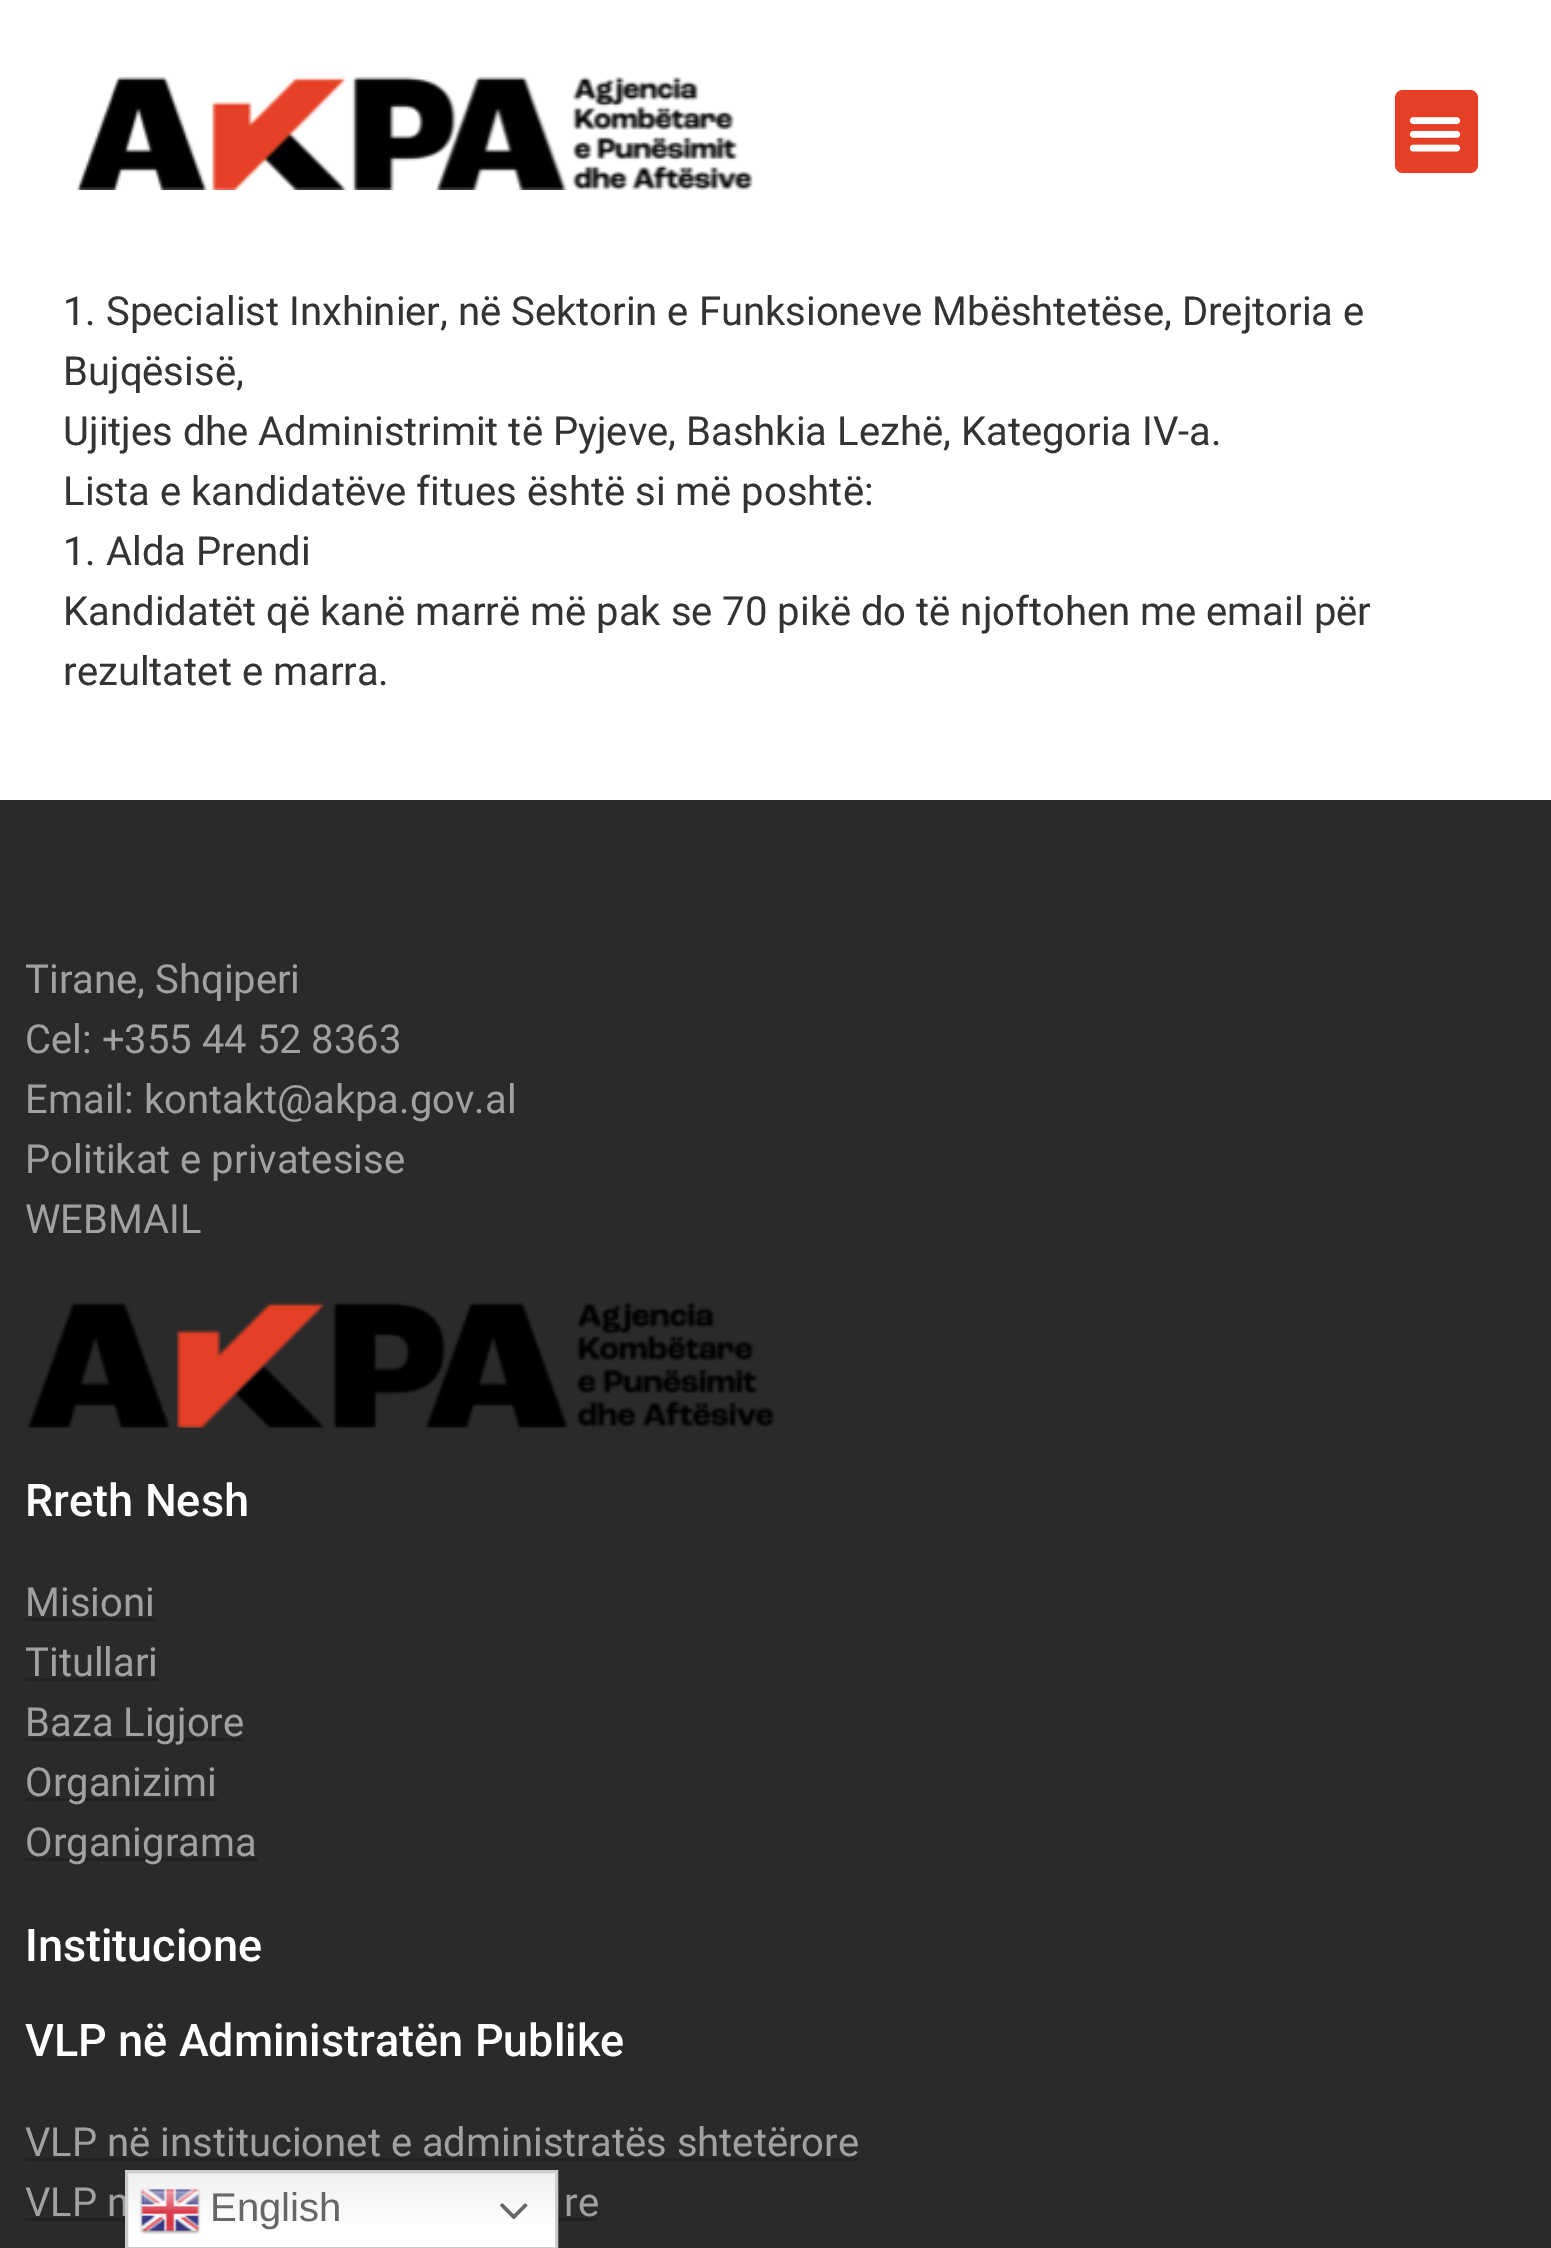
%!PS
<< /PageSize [1551 2248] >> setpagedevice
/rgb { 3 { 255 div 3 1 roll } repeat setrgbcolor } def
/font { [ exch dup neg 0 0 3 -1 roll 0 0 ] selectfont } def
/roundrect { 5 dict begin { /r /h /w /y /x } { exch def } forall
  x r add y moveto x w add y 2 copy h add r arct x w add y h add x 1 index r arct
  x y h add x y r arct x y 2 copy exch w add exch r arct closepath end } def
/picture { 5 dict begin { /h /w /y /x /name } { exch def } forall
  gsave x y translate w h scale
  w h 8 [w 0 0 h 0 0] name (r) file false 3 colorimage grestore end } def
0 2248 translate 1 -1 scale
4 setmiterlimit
255 255 255 rgb
0 0 1551 2248 rectfill
(img/1.rgb) 76 76 677 114 picture
229 64 37 rgb
1395 90 83 83 8 roundrect fill
(img/2.rgb) 1409 117 52 35 picture
42 42 42 rgb
0 800 1551 1448 rectfill
(img/3.rgb) 27 1302 748 126 picture
[
  [25 1618 130 3 34 34 34]
  [25 1678 133 3 34 34 34]
  [25 1738 220 3 34 34 34]
  [25 1798 193 3 34 34 34]
  [25 1858 233 3 34 34 34]
  [25 2158 835 3 34 34 34]
  [25 2218 573 3 34 34 34]
] { aload pop rgb rectfill } forall
gsave 128 2173 moveto 555 2173 lineto 555 2247 lineto 128 2247 lineto closepath clip newpath
<< /ShadingType 2 /ColorSpace /DeviceRGB /Coords [341 2170 341 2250] /Extend [true true] /Function << /FunctionType 3 /Domain [0 1] /Functions [<< /FunctionType 2 /Domain [0 1] /C0 [0.937 0.937 0.937] /C1 [1 1 1] /N 1 >> << /FunctionType 2 /Domain [0 1] /C0 [1 1 1] /C1 [1 1 1] /N 1 >>] /Bounds [0.7] /Encode [0 1 0 1] >> >> shfill grestore
/Roboto-Regular 40 font
51 51 51 rgb
[
  [(1. Specialist Inxhinier, në Sektorin e Funksioneve Mbështetëse, Drejtoria e) 63 325]
  [(Bujqësisë,) 63 385]
  [(Ujitjes dhe Administrimit të Pyjeve, Bashkia Lezhë, Kategoria IV-a.) 63 445]
  [(Lista e kandidatëve fitues është si më poshtë:) 63 505]
  [(1. Alda Prendi) 63 565]
  [(Kandidatët që kanë marrë më pak se 70 pikë do të njoftohen me email për) 63 625]
  [(rezultatet e marra.) 63 685]
] { aload pop moveto show } forall
161 161 161 rgb
[
  [(Tirane, Shqiperi) 25 993]
  [(Cel: +355 44 52 8363) 25 1053]
  [(Email: kontakt@akpa.gov.al) 25 1113]
  [(Politikat e privatesise) 25 1173]
  [(WEBMAIL) 25 1233]
] { aload pop moveto show } forall
/Roboto-Medium 45 font
255 255 255 rgb
25 1516 moveto (Rreth Nesh) show
/Roboto-Regular 40 font
161 161 161 rgb
[
  [(Misioni) 25 1616]
  [(Titullari) 25 1676]
  [(Baza Ligjore) 25 1736]
  [(Organizimi) 25 1796]
  [(Organigrama) 25 1856]
] { aload pop moveto show } forall
/Roboto-Medium 45 font
255 255 255 rgb
25 1961 moveto (Institucione) show
25 2056 moveto (VLP në Administratën Publike) show
/Roboto-Regular 40 font
161 161 161 rgb
[
  [(VLP në institucionet e administratës shtetërore) 25 2156]
  [(VLP n) 25 2216]
  [(re) 564 2216]
] { aload pop moveto show } forall
204 204 204 rgb
3 setlinewidth
126.5 2171.5 430 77 rectstroke
(img/4.rgb) 139 2188 62 47 picture
/LiberationSans-Regular 40 font
102 102 102 rgb
210 2221 moveto (English) show
(img/5.rgb) 500 2203 28 17 picture
showpage
